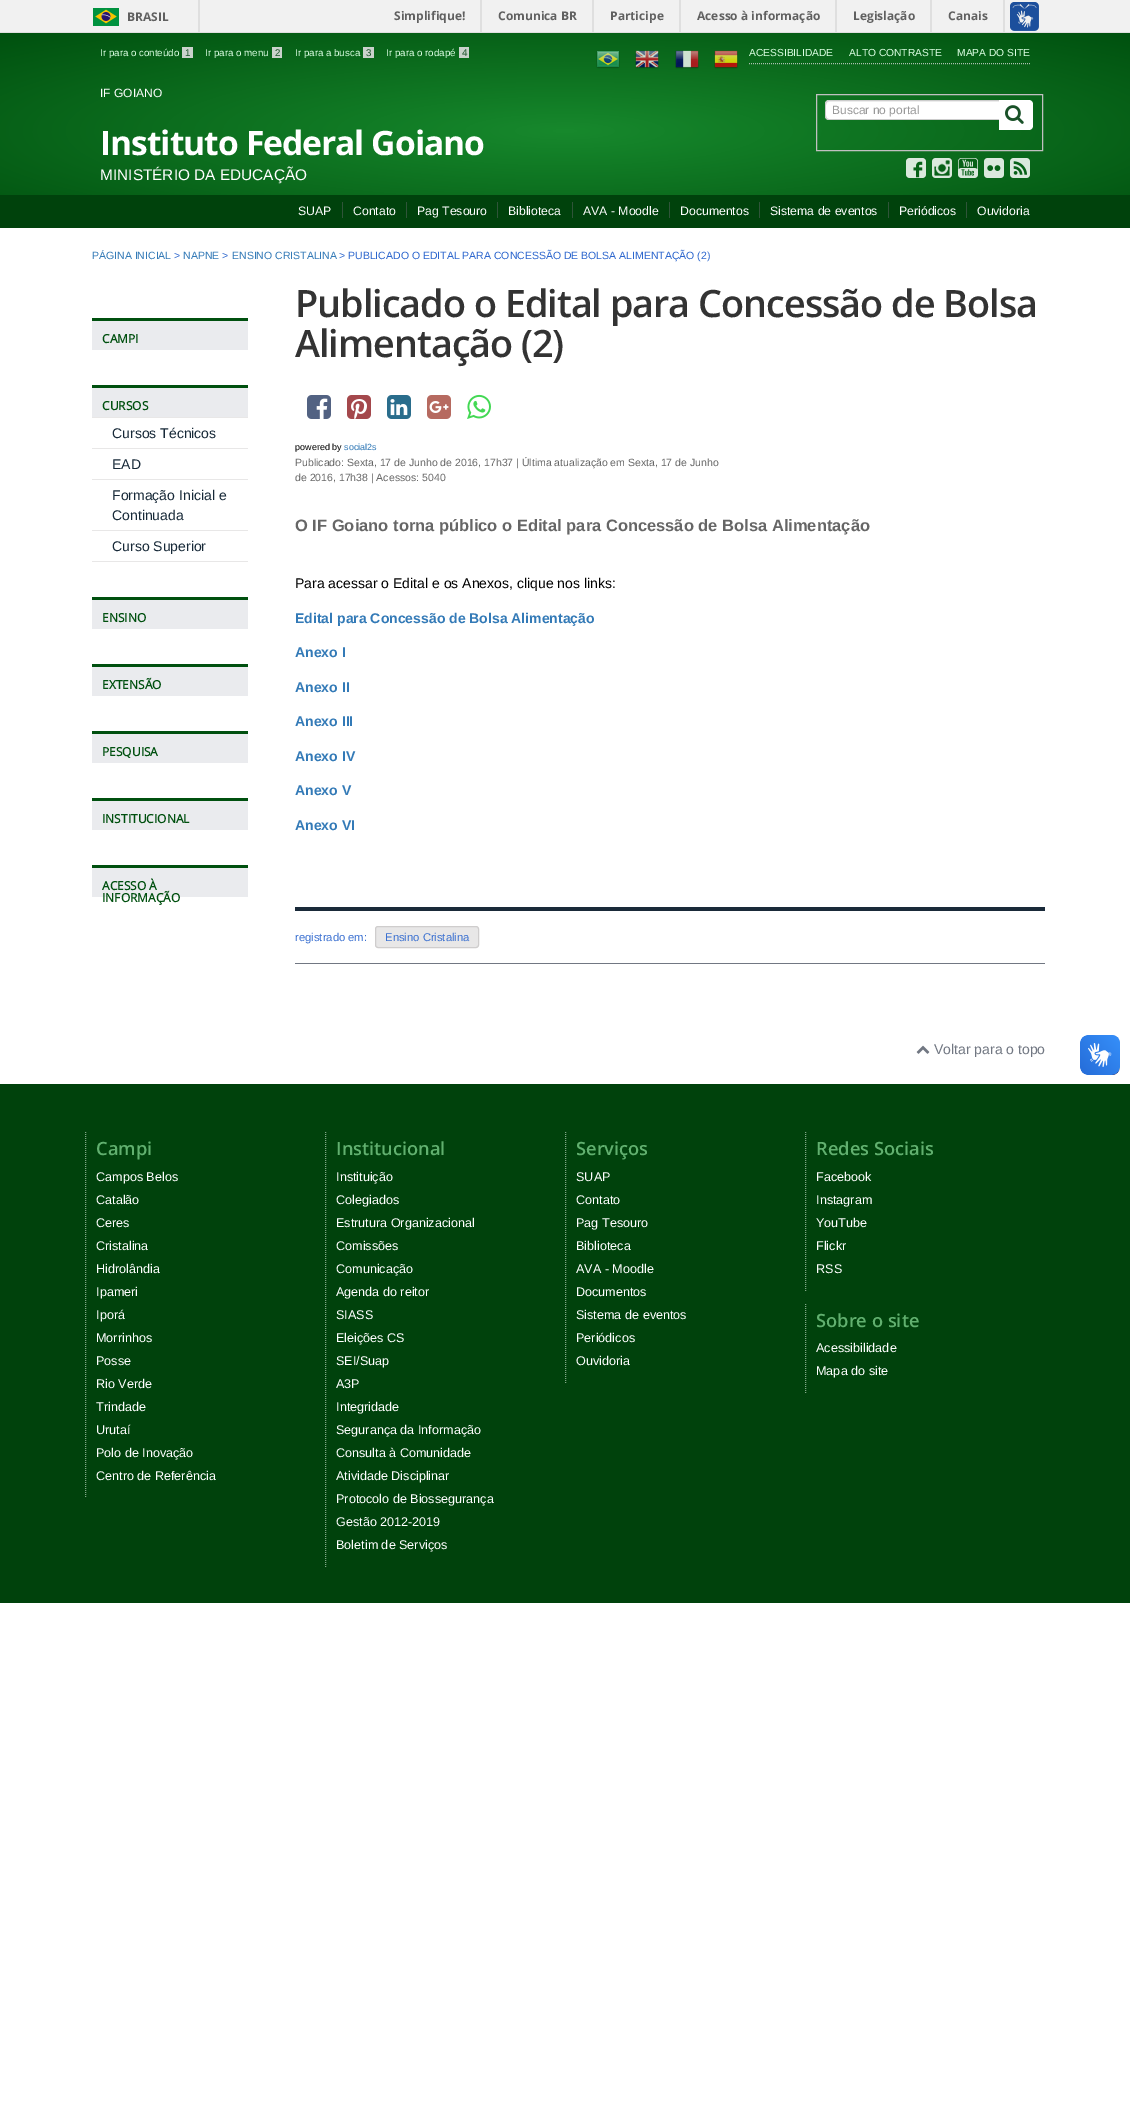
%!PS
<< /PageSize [1130 2109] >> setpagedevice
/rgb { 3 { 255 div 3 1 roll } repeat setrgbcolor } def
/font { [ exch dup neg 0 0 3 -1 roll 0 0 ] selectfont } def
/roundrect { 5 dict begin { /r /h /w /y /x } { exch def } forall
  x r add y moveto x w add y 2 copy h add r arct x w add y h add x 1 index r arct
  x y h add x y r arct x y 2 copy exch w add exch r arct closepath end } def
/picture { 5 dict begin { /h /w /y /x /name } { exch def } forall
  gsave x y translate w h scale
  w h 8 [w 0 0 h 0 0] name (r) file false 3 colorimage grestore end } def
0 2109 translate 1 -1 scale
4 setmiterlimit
255 255 255 rgb
0 0 1130 2109 rectfill
[
  [0 0 1130 32 241 241 241]
  [0 32 1130 1 223 223 223]
  [198 0 2 32 223 223 223]
] { aload pop rgb rectfill } forall
(img/1.rgb) 93 8 26 18 picture
[
  [480 0 2 32 223 223 223]
  [592 0 2 32 223 223 223]
  [679 0 2 32 223 223 223]
  [835 0 2 32 223 223 223]
  [930 0 2 32 223 223 223]
  [1003 0 2 32 223 223 223]
] { aload pop rgb rectfill } forall
(img/2.rgb) 1010 2 29 29 picture
gsave 0 33 moveto 1130 33 lineto 1130 195 lineto 0 195 lineto closepath clip newpath 565 131 translate 799 138 scale
<< /ShadingType 3 /ColorSpace /DeviceRGB /Coords [0 0 0 0 0 1] /Extend [true true] /Function << /FunctionType 3 /Domain [0 1] /Functions [<< /FunctionType 2 /Domain [0 1] /C0 [0.09 0.533 0.173] /C1 [0.09 0.533 0.173] /N 1 >> << /FunctionType 2 /Domain [0 1] /C0 [0.09 0.533 0.173] /C1 [0 0.318 0.059] /N 1 >>] /Bounds [0.01] /Encode [0 1 0 1] >> >> shfill grestore
[
  [182 47 11 11 202 210 204]
  [272 47 10 11 202 210 204]
  [363 47 11 11 202 210 204]
  [459 47 10 11 202 210 204]
] { aload pop rgb rectfill } forall
(img/3.rgb) 596 50 24 19 picture
(img/4.rgb) 635 50 24 19 picture
(img/5.rgb) 675 50 24 19 picture
(img/6.rgb) 714 50 24 19 picture
171 190 176 rgb
[1 1] 0 setdash
749 63.5 moveto 1030 63.5 lineto stroke
192 192 192 rgb
[] 0 setdash
816.5 94.5 226 56 rectstroke
255 255 255 rgb
829 100 moveto 1000 100 lineto 1000 120 lineto 829 120 lineto 827 120 825 118 825 116 curveto 825 104 lineto 825 102 827 100 829 100 curveto closepath fill
236 236 236 rgb
829 102 moveto 1000 102 lineto 1000 101 lineto 829 101 lineto 826 101 826 103 826 105 curveto 826 103 827 102 829 102 curveto closepath fill
204 204 204 rgb
829 100 moveto 1000 100 lineto 1000 120 lineto 829 120 lineto 827 120 825 118 825 116 curveto 825 104 lineto 825 102 827 100 829 100 curveto closepath 829 101 moveto 1000 101 lineto 1000 119 lineto 829 119 lineto 825 119 826 113 826 110 curveto 826 107 825 101 829 101 curveto closepath eofill
255 255 255 rgb
999 100 moveto 1029 100 lineto 1031 100 1033 102 1033 104 curveto 1033 126 lineto 1033 128 1031 130 1029 130 curveto 999 130 lineto closepath fill
(img/7.rgb) 1005 105 19 19 picture
(img/8.rgb) 906 158 20 20 picture
(img/9.rgb) 932 158 20 20 picture
(img/10.rgb) 958 158 20 20 picture
(img/11.rgb) 984 158 20 20 picture
(img/12.rgb) 1010 158 20 20 picture
[
  [0 195 1130 33 0 66 12]
  [342 202 1 16 47 84 57]
  [406 202 1 16 47 84 57]
  [497 202 1 16 47 84 57]
  [572 202 1 16 47 84 57]
  [669 202 1 16 47 84 57]
  [759 202 1 16 47 84 57]
  [888 202 1 16 47 84 57]
  [966 202 1 16 47 84 57]
  [92 321 156 29 234 235 238]
  [92 318 156 3 0 80 15]
  [92 388 156 29 234 235 238]
  [92 385 156 3 0 80 15]
  [92 417 156 1 232 231 231]
  [92 448 156 1 232 231 231]
  [92 479 156 1 232 231 231]
  [92 530 156 1 232 231 231]
  [92 561 156 1 232 231 231]
  [92 600 156 29 234 235 238]
  [92 597 156 3 0 80 15]
  [92 667 156 29 234 235 238]
  [92 664 156 3 0 80 15]
  [92 734 156 29 234 235 238]
  [92 731 156 3 0 80 15]
  [92 801 156 29 234 235 238]
  [92 798 156 3 0 80 15]
  [92 868 156 29 234 235 238]
  [92 865 156 3 0 80 15]
] { aload pop rgb rectfill } forall
(img/13.rgb) 307 395 24 24 picture
(img/14.rgb) 347 395 24 24 picture
(img/15.rgb) 387 395 24 24 picture
(img/16.rgb) 427 395 24 24 picture
(img/17.rgb) 467 394 24 25 picture
26 42 57 rgb
295 907 750 4 rectfill
113 119 130 rgb
295 963 750 1 rectfill
232 231 231 rgb
375.5 926.5 103 21 2.5 roundrect gsave fill grestore
207 205 205 rgb
stroke
0 66 12 rgb
0 1084 1130 519 rectfill
(img/18.rgb) 916 1045 14 9 picture
128 168 135 rgb
[1 1] 0 setdash
85.5 1132 moveto 85.5 1498 lineto stroke
325.5 1132 moveto 325.5 1567 lineto stroke
565.5 1132 moveto 565.5 1383 lineto stroke
805.5 1132 moveto 805.5 1291 lineto stroke
805.5 1304 moveto 805.5 1393 lineto stroke
(img/19.rgb) 1080 1035 40 40 picture
(img/20.rgb) 1080 1035 40 40 picture
/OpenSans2-Bold 12 font
96 96 96 rgb
[
  [(BRASIL) 127 21]
  [(Simplifique!) 394 20]
  [(Comunica BR) 498 20]
  [(Participe) 610 20]
  [(Acesso à informação) 697 20]
  [(Legislação) 853 20]
  [(Canais) 948 20]
] { aload pop moveto show } forall
/LiberationSans-Regular 9.75 font
220 255 227 rgb
100 56 moveto (Ir para o conteúdo) show
25 81 40 rgb
185 56 moveto (1) show
220 255 227 rgb
205 56 moveto (Ir para o menu) show
25 81 40 rgb
275 56 moveto (2) show
220 255 227 rgb
295 56 moveto (Ir para a busca) show
25 81 40 rgb
366 56 moveto (3) show
220 255 227 rgb
386 56 moveto (Ir para o rodapé) show
25 81 40 rgb
462 56 moveto (4) show
/LiberationSans-Regular 10.25 font
220 255 227 rgb
[
  [(ACESSIBILIDADE) 749 56]
  [(ALTO CONTRASTE) 849 56]
  [(MAPA DO SITE) 957 56]
] { aload pop moveto show } forall
/LiberationSans-Regular 12 font
255 255 255 rgb
100 97 moveto (IF GOIANO) show
/OpenSans-Bold 33.6 font
100 155 moveto -1 0 (Instituto Federal Goiano) ashow
/LiberationSans-Regular 15.4 font
100 180 moveto (MINISTÉRIO DA EDUCAÇÃO) show
/LiberationSans-Regular 12 font
153 153 153 rgb
832 114 moveto (Buscar no portal) show
/LiberationSans-Regular 12.25 font
255 255 255 rgb
[
  [(SUAP) 298 215]
  [(Contato) 353 215]
  [(Pag Tesouro) 417 215]
  [(Biblioteca) 508 215]
  [(AVA - Moodle) 583 215]
  [(Documentos) 680 215]
  [(Sistema de eventos) 770 215]
  [(Periódicos) 899 215]
  [(Ouvidoria) 977 215]
] { aload pop moveto show } forall
/LiberationSans-Regular 10.5 font
51 122 183 rgb
92 259 moveto (PÁGINA INICIAL) show
44 102 206 rgb
174 259 moveto (>) show
51 122 183 rgb
183 259 moveto (NAPNE) show
44 102 206 rgb
222 259 moveto (>) show
51 122 183 rgb
232 259 moveto (ENSINO CRISTALINA) show
44 102 206 rgb
339 259 moveto (> PUBLICADO O EDITAL PARA CONCESSÃO DE BOLSA ALIMENTAÇÃO \(2\)) show
/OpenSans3-Bold 12 font
0 80 15 rgb
102 343 moveto (CAMPI) show
102 410 moveto (CURSOS) show
/LiberationSans-Regular 14 font
23 41 56 rgb
[
  [(Cursos Técnicos) 112 438]
  [(EAD) 112 469]
  [(Formação Inicial e) 112 500]
  [(Continuada) 112 520]
  [(Curso Superior) 112 551]
] { aload pop moveto show } forall
/OpenSans3-Bold 12 font
0 80 15 rgb
[
  [(ENSINO) 102 622]
  [(EXTENSÃO) 102 689]
  [(PESQUISA) 102 756]
  [(INSTITUCIONAL) 102 823]
  [(ACESSO À) 102 890]
  [(INFORMAÇÃO) 102 902]
] { aload pop moveto show } forall
/OpenSans-SemiBold 37.75 font
51 51 51 rgb
295 317 moveto -1 0 (Publicado o Edital para Concessão de Bolsa) ashow
295 357 moveto -1 0 (Alimentação \(2\)) ashow
/LiberationSans-Regular 9 font
0 0 0 rgb
295 450 moveto (powered by) show
51 122 183 rgb
344 450 moveto (social2s) show
/LiberationSans-Regular 10.5 font
102 102 102 rgb
295 466 moveto (Publicado: Sexta, 17 de Junho de 2016, 17h37 | Última atualização em Sexta, 17 de Junho) show
295 481 moveto (de 2016, 17h38 | Acessos: 5040) show
/LiberationSans-Bold 16.5 font
295 531 moveto (O IF Goiano torna público o Edital para Concessão de Bolsa Alimentação) show
/LiberationSans-Regular 14 font
0 0 0 rgb
295 588 moveto (Para acessar o Edital e os Anexos, clique nos links:) show
/LiberationSans-Bold 14 font
51 122 183 rgb
[
  [(Edital para Concessão de Bolsa Alimentação) 295 623]
  [(Anexo I) 295 657]
  [(Anexo II) 295 692]
  [(Anexo III) 295 726]
  [(Anexo IV) 295 761]
  [(Anexo V) 295 795]
  [(Anexo VI) 295 830]
] { aload pop moveto show } forall
/LiberationSans-Regular 11.25 font
58 112 209 rgb
295 941 moveto (registrado em:) show
385 941 moveto (Ensino Cristalina) show
/LiberationSans-Regular 14 font
113 119 130 rgb
934 1054 moveto (Voltar para o topo) show
/OpenSans-SemiBold 18.25 font
97 176 111 rgb
96 1155 moveto (Campi) show
/LiberationSans-Regular 12.6 font
255 255 255 rgb
[
  [(Campos Belos) 96 1181]
  [(Catalão) 96 1204]
  [(Ceres) 96 1227]
  [(Cristalina) 96 1250]
  [(Hidrolândia) 96 1273]
  [(Ipameri) 96 1296]
  [(Iporá) 96 1319]
  [(Morrinhos) 96 1342]
  [(Posse) 96 1365]
  [(Rio Verde) 96 1388]
  [(Trindade) 96 1411]
  [(Urutaí) 96 1434]
  [(Polo de Inovação) 96 1457]
  [(Centro de Referência) 96 1480]
] { aload pop moveto show } forall
/OpenSans-SemiBold 18.25 font
97 176 111 rgb
336 1155 moveto (Institucional) show
/LiberationSans-Regular 12.6 font
255 255 255 rgb
[
  [(Instituição) 336 1181]
  [(Colegiados) 336 1204]
  [(Estrutura Organizacional) 336 1227]
  [(Comissões) 336 1250]
  [(Comunicação) 336 1273]
  [(Agenda do reitor) 336 1296]
  [(SIASS) 336 1319]
  [(Eleições CS) 336 1342]
  [(SEI/Suap) 336 1365]
  [(A3P) 336 1388]
  [(Integridade) 336 1411]
  [(Segurança da Informação) 336 1434]
  [(Consulta à Comunidade) 336 1457]
  [(Atividade Disciplinar) 336 1480]
  [(Protocolo de Biossegurança) 336 1503]
  [(Gestão 2012-2019) 336 1526]
  [(Boletim de Serviços) 336 1549]
] { aload pop moveto show } forall
/OpenSans-SemiBold 18.25 font
97 176 111 rgb
576 1155 moveto (Serviços) show
/LiberationSans-Regular 12.6 font
255 255 255 rgb
[
  [(SUAP) 576 1181]
  [(Contato) 576 1204]
  [(Pag Tesouro) 576 1227]
  [(Biblioteca) 576 1250]
  [(AVA - Moodle) 576 1273]
  [(Documentos) 576 1296]
  [(Sistema de eventos) 576 1319]
  [(Periódicos) 576 1342]
  [(Ouvidoria) 576 1365]
] { aload pop moveto show } forall
/OpenSans-SemiBold 18.25 font
97 176 111 rgb
816 1155 moveto (Redes Sociais) show
/LiberationSans-Regular 12.6 font
255 255 255 rgb
[
  [(Facebook) 816 1181]
  [(Instagram) 816 1204]
  [(YouTube) 816 1227]
  [(Flickr) 816 1250]
  [(RSS) 816 1273]
] { aload pop moveto show } forall
/OpenSans-SemiBold 18.25 font
97 176 111 rgb
816 1327 moveto (Sobre o site) show
/LiberationSans-Regular 12.6 font
255 255 255 rgb
816 1352 moveto (Acessibilidade) show
816 1375 moveto (Mapa do site) show
showpage
